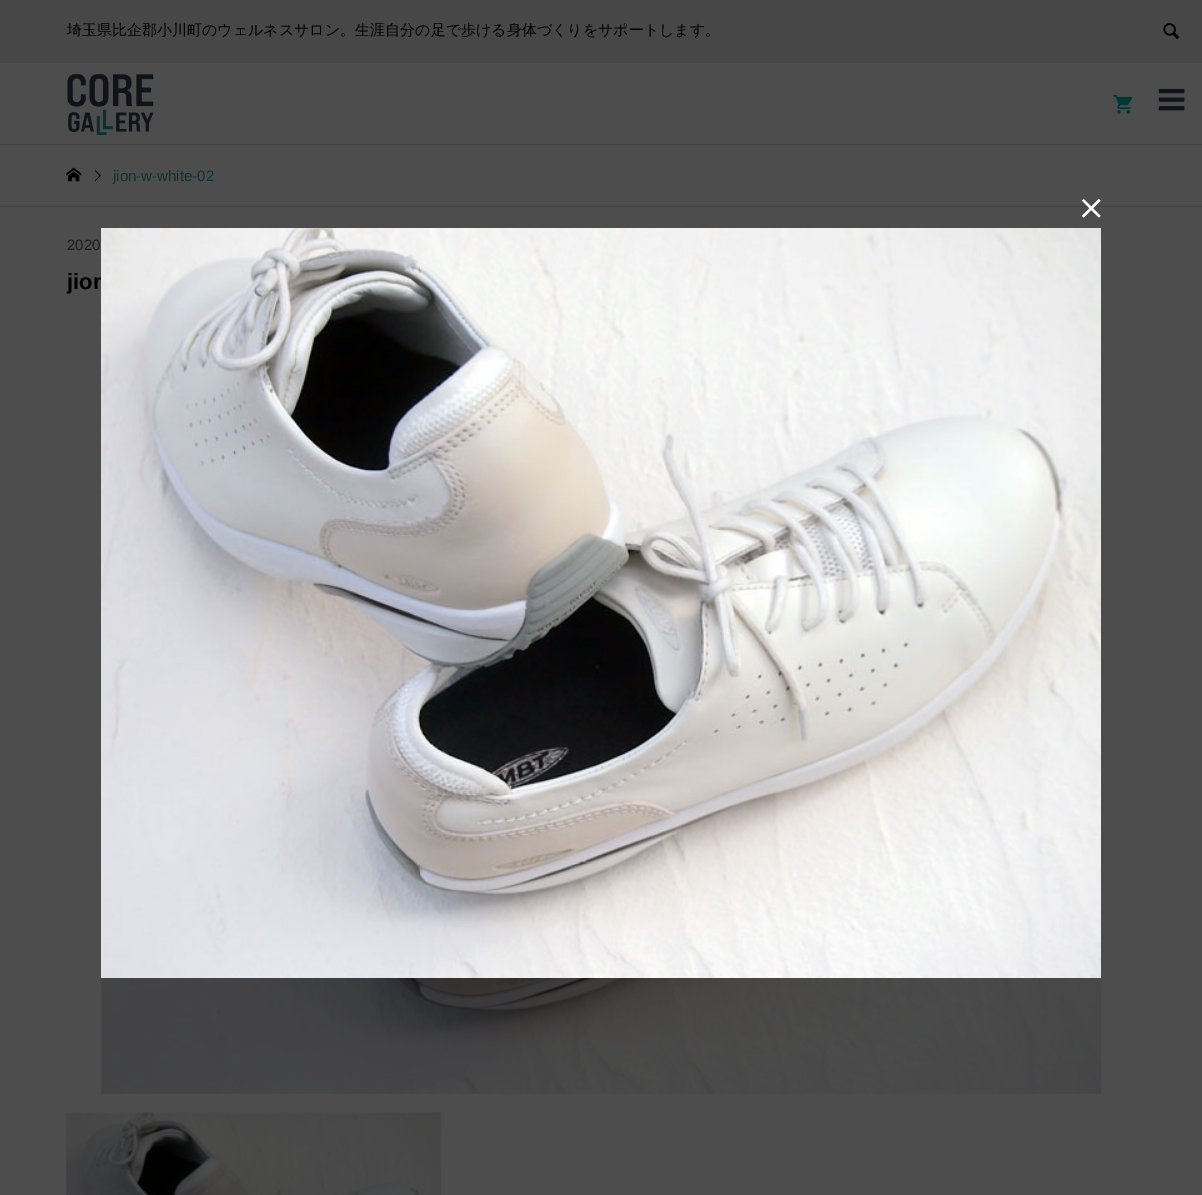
%!PS
<< /PageSize [1202 1195] >> setpagedevice
/rgb { 3 { 255 div 3 1 roll } repeat setrgbcolor } def
/font { [ exch dup neg 0 0 3 -1 roll 0 0 ] selectfont } def
/picture { 5 dict begin { /h /w /y /x /name } { exch def } forall
  gsave x y translate w h scale
  w h 8 [w 0 0 h 0 0] name (r) file false 3 colorimage grestore end } def
0 1195 translate 1 -1 scale
4 setmiterlimit
77 77 77 rgb
0 0 1202 1195 rectfill
71 71 71 rgb
0 0 1202 63 rectfill
(img/1.rgb) 1163 23 17 16 picture
(img/2.rgb) 67 73 87 62 picture
(img/3.rgb) 1113 95 20 19 picture
(img/4.rgb) 1158 88 27 23 picture
66 66 66 rgb
0 144 1202 1 rectfill
0 206 1202 1 rectfill
(img/5.rgb) 66 167 16 15 picture
(img/6.rgb) 95 170 6 11 picture
(img/7.rgb) 101 343 1001 751 picture
(img/8.rgb) 66 1112 376 83 picture
(img/9.rgb) 1081 198 20 20 picture
/WenQuanYiZenHei-Medium 15 font
0 0 0 rgb
67 35 moveto (埼玉県比企郡小川町のウェルネスサロン。生涯自分の足で歩ける身体づくりをサポートします。) show
/LiberationSans-Regular 15 font
12 51 49 rgb
113 181 moveto (jion-w-white-02) show
31 31 31 rgb
67 250 moveto (2020) show
/LiberationSans-Bold 22 font
0 0 0 rgb
67 289 moveto (jion) show
(img/10.rgb) 101 228 1000 750 picture
showpage
